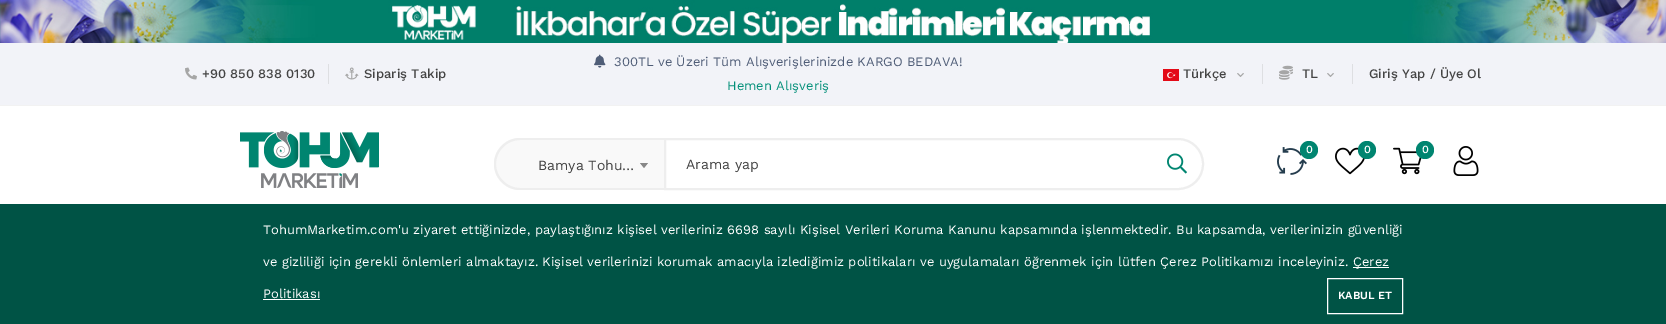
%!PS
<< /PageSize [1666 324] >> setpagedevice
/rgb { 3 { 255 div 3 1 roll } repeat setrgbcolor } def
/font { [ exch dup neg 0 0 3 -1 roll 0 0 ] selectfont } def
/circle { newpath 0 360 arc closepath } def
/picture { 5 dict begin { /h /w /y /x /name } { exch def } forall
  gsave x y translate w h scale
  w h 8 [w 0 0 h 0 0] name (r) file false 3 colorimage grestore end } def
0 324 translate 1 -1 scale
4 setmiterlimit
255 255 255 rgb
0 0 1666 324 rectfill
(img/1.rgb) 0 0 1666 43 picture
242 243 248 rgb
0 43 1666 62 rectfill
242 242 242 rgb
0 105 1666 1 rectfill
(img/2.rgb) 185 67 12 13 picture
222 223 226 rgb
328 64 1 20 rectfill
(img/3.rgb) 345 67 14 13 picture
(img/4.rgb) 594 54 12 14 picture
(img/5.rgb) 1163 69 16 12 picture
(img/6.rgb) 1237 73 7 4 picture
1262 64 1 20 rectfill
(img/7.rgb) 1279 65 14 15 picture
(img/6.rgb) 1327 73 7 4 picture
1352 64 1 20 rectfill
(img/8.rgb) 240 131 139 57 picture
(img/9.rgb) 1277 147 30 28 picture
0 133 112 rgb
1309 150 9 circle fill
(img/10.rgb) 1335 147 30 28 picture
1367 150 9 circle fill
(img/11.rgb) 1393 147 29 28 picture
1425 150 9 circle fill
(img/12.rgb) 1453 146 26 30 picture
249 249 249 rgb
520 138 moveto 664 138 lineto 664 190 lineto 520 190 lineto 505.5 190 494 178.5 494 164 curveto 494 149.5 505.5 138 520 138 curveto closepath fill
238 238 238 rgb
520 138 moveto 664 138 lineto 664 190 lineto 520 190 lineto 506 190 494 178 494 164 curveto 494 150 506 138 520 138 curveto closepath 520 140 moveto 664 140 lineto 664 188 lineto 520 188 lineto 507 188 496 177 496 164 curveto 496 151 507 140 520 140 curveto closepath eofill
136 136 136 rgb
640 163 moveto 648 163 lineto 644 168 lineto closepath fill
238 238 238 rgb
2 setlinewidth
665 139 moveto 1178 139 lineto 1192 139 1203 150 1203 164 curveto 1203 178 1192 189 1178 189 curveto 665 189 lineto closepath stroke
(img/13.rgb) 1167 153 20 21 picture
[
  [0 204 1666 120 0 83 69]
  [1353 267 36 1 255 255 255]
  [263 299 57 1 255 255 255]
] { aload pop rgb rectfill } forall
1 setlinewidth
1327.5 278.5 75 35 rectstroke
/WorkSans-Medium 13 font
68 68 68 rgb
202 78 moveto (+90 850 838 0130) show
364 78 moveto (Sipariş Takip) show
/WorkSans-Regular 13 font
79 93 119 rgb
614 66 moveto (300TL ve Üzeri Tüm Alışverişlerinizde KARGO BEDAVA!) show
4 144 122 rgb
727 90 moveto (Hemen Alışveriş) show
/WorkSans-Medium 13 font
68 68 68 rgb
[
  [(Türkçe) 1183 78]
  [(TL) 1302 78]
  [(Giriş Yap / Üye Ol) 1369 78]
] { aload pop moveto show } forall
/WorkSans-Medium 11 font
255 255 255 rgb
[
  [(0) 1306 153]
  [(0) 1364 153]
  [(0) 1422 153]
] { aload pop moveto show } forall
/WorkSans-Regular 14 font
68 68 68 rgb
538 170 moveto (Bamya Tohu…) show
686 169 moveto (Arama yap) show
/WorkSans-Regular 13 font
255 255 255 rgb
[
  [(TohumMarketim.com'u ziyaret ettiğinizde, paylaştığınız kişisel verileriniz 6698 sayılı Kişisel Verileri Koruma Kanunu kapsamında işlenmektedir. Bu kapsamda, verilerinizin güvenliği) 263 234]
  [(ve gizliliği için gerekli önlemleri almaktayız. Kişisel verilerinizi korumak amacıyla izlediğimiz politikaları ve uygulamaları öğrenmek için lütfen Çerez Politikamızı inceleyiniz.) 263 266]
  [(Çerez) 1353 266]
  [(Politikası) 263 298]
] { aload pop moveto show } forall
/WorkSans-SemiBold 11 font
1338 299 moveto (KABUL ET) show
showpage
